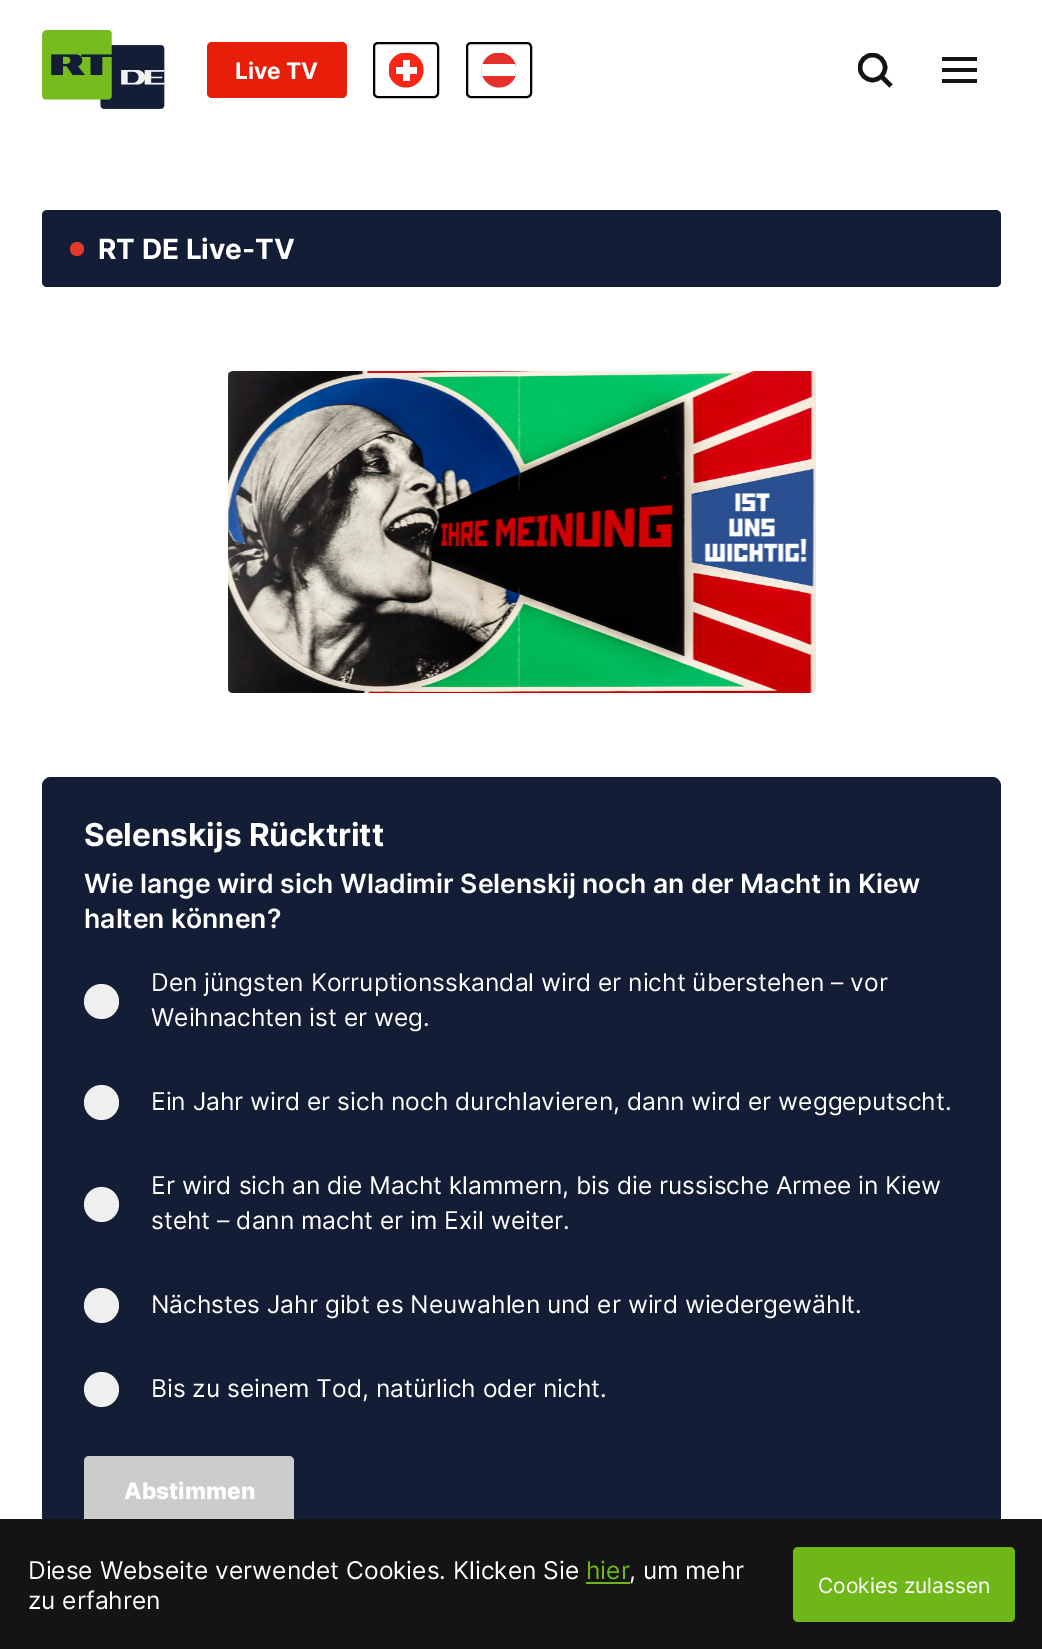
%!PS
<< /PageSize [1042 1649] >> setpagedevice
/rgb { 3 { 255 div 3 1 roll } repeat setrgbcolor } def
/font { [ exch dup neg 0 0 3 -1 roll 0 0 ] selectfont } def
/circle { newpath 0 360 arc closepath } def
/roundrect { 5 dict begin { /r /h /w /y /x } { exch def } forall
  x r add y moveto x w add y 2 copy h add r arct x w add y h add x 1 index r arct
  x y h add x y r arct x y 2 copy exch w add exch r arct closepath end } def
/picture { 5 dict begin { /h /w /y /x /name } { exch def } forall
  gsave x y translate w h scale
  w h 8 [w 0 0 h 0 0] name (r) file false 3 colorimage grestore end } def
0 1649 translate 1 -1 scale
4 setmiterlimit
255 255 255 rgb
0 0 1042 1649 rectfill
(img/1.rgb) 42 30 123 79 picture
230 30 10 rgb
207 42 140 56 5 roundrect fill
0 0 0 rgb
2 setlinewidth
374 43 64 54 4 roundrect stroke
gsave
389 53 35 35 rectclip
247 38 23 rgb
406 70 17.5 circle fill
grestore
255 255 255 rgb
403 60 7 21 rectfill
396 67 21 7 rectfill
0 0 0 rgb
467 43 64 54 4 roundrect stroke
gsave
481 53 35 35 rectclip
228 49 43 rgb
499 70 17.5 circle fill
grestore
255 255 255 rgb
482.5 76 moveto 481 72 481 68 482.5 64 curveto 515 64 lineto 516.5 67.5 516.5 72.5 515 76 curveto closepath fill
gsave
858 53 35 35 rectclip
20 20 20 rgb
4.4 setlinewidth
872.5 67.5 12.5 circle stroke
grestore
20 20 20 rgb
4.4 setlinewidth
881.5 76.5 moveto 891 86 lineto stroke
[
  [942 57 35 4 20 20 20]
  [942 68 35 4 20 20 20]
  [942 79 35 4 20 20 20]
] { aload pop rgb rectfill } forall
19 29 54 rgb
42 210 959 77 5 roundrect fill
225 58 40 rgb
77 249 7 circle fill
(img/2.rgb) 228 371 588 322 picture
19 29 54 rgb
42 777 959 791 9 roundrect fill
239 239 239 rgb
101.5 1001.5 17.5 circle fill
101.5 1102.5 17.5 circle fill
101.5 1204.5 17.5 circle fill
101.5 1305.5 17.5 circle fill
101.5 1389.5 17.5 circle fill
204 204 204 rgb
84 1456 210 70 5 roundrect fill
20 20 20 rgb
0 1519 1042 130 rectfill
111 183 25 rgb
586 1582 44 2 rectfill
793 1547 222 75 5 roundrect fill
/Inter-Bold 22.75 font
255 255 255 rgb
235 79 moveto (Live TV) show
/Inter-Bold 28 font
98 259 moveto (RT DE Live-TV) show
/Inter-Bold 31.5 font
84 846 moveto (Selenskijs Rücktritt) show
/Inter-SemiBold 26.55 font
84 893 moveto (Wie lange wird sich Wladimir Selenskij noch an der Macht in Kiew) show
84 928 moveto (halten können?) show
/Inter-Regular 24.5 font
[
  [(Den jüngsten Korruptionsskandal wird er nicht überstehen – vor) 151 991]
  [(Weihnachten ist er weg.) 151 1026]
  [(Ein Jahr wird er sich noch durchlavieren, dann wird er weggeputscht.) 151 1110]
  [(Er wird sich an die Macht klammern, bis die russische Armee in Kiew) 151 1194]
  [(steht – dann macht er im Exil weiter.) 151 1229]
  [(Nächstes Jahr gibt es Neuwahlen und er wird wiedergewählt.) 151 1313]
  [(Bis zu seinem Tod, natürlich oder nicht.) 151 1397]
] { aload pop moveto show } forall
/Inter-ExtraBold 22.75 font
124 1499 moveto (Abstimmen) show
/Inter-Regular 24.5 font
28 1579 moveto (Diese Webseite verwendet Cookies. Klicken Sie) show
111 183 25 rgb
586 1579 moveto (hier) show
255 255 255 rgb
629 1579 moveto (, um mehr) show
28 1609 moveto (zu erfahren) show
/Inter-Regular 21 font
818 1593 moveto (Cookies zulassen) show
showpage
